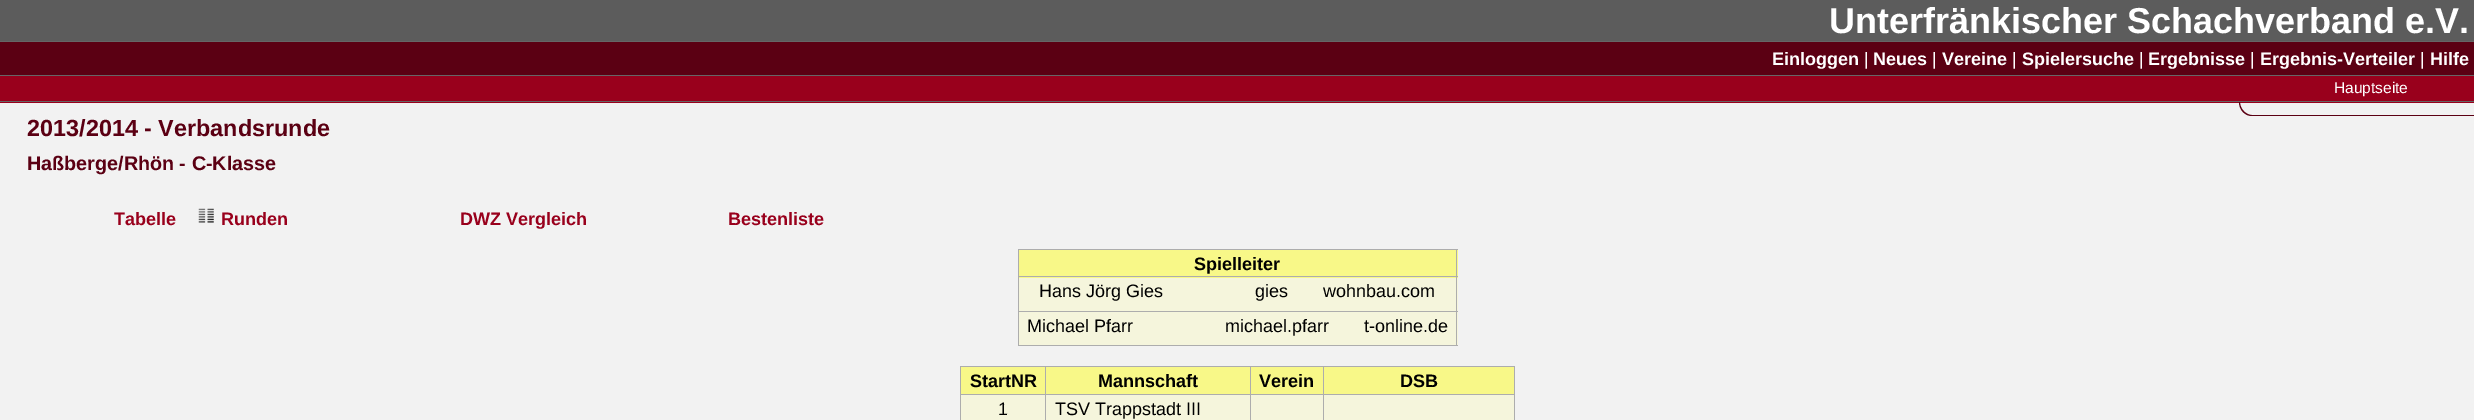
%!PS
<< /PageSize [2474 420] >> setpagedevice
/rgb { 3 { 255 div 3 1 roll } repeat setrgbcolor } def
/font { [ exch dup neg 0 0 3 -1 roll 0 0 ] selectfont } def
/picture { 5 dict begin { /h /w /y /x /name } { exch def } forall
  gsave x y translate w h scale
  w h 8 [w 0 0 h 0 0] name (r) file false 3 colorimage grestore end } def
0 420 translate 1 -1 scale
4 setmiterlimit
242 242 242 rgb
0 0 2474 420 rectfill
[
  [0 0 2474 41 92 92 92]
  [0 42 2474 33 91 0 19]
  [0 41 2474 1 102 102 102]
  [0 75 2474 1 102 102 102]
  [0 76 2474 27 153 0 28]
  [0 101 2474 1 102 102 102]
] { aload pop rgb rectfill } forall
91 0 19 rgb
2239 102 moveto 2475 102 lineto 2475 116 lineto 2252 116 lineto 2245 116 2239 110 2239 102 curveto closepath 2240 102 moveto 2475 102 lineto 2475 115 lineto 2252 115 lineto 2246 115 2240 109 2240 102 curveto closepath eofill
(img/1.rgb) 198 208 16 15 picture
[
  [1019 278 439 67 245 245 220]
  [1019 250 439 28 248 248 136]
  [1018 249 440 1 173 173 173]
  [1018 276 440 1 173 173 173]
  [1018 311 440 1 173 173 173]
  [1456 311 1 35 173 173 173]
  [1456 276 1 37 173 173 173]
  [1456 249 1 29 173 173 173]
  [1018 345 440 1 173 173 173]
  [1018 311 1 35 173 173 173]
  [1018 276 1 37 173 173 173]
  [1018 249 1 29 173 173 173]
  [961 395 553 25 245 245 220]
  [961 367 84 27 248 248 136]
  [1323 366 192 1 173 173 173]
  [1323 394 192 1 173 173 173]
  [1323 394 1 26 173 173 173]
  [1250 394 74 1 173 173 173]
  [1323 366 1 29 173 173 173]
  [1250 366 74 1 173 173 173]
  [1250 394 1 26 173 173 173]
  [1045 394 206 1 173 173 173]
  [1250 366 1 29 173 173 173]
  [1045 366 206 1 173 173 173]
  [1045 394 1 26 173 173 173]
  [960 394 86 1 173 173 173]
  [1045 366 1 29 173 173 173]
  [960 366 86 1 173 173 173]
  [960 394 1 26 173 173 173]
  [960 366 1 29 173 173 173]
  [1046 367 204 27 248 248 136]
  [1251 367 72 27 248 248 136]
  [1324 367 190 27 248 248 136]
  [1514 394 1 26 173 173 173]
  [1514 366 1 29 173 173 173]
] { aload pop rgb rectfill } forall
/LiberationSans-Bold 36 font
255 255 255 rgb
1829 33 moveto (Unterfränkischer Schachverband e.V.) show
/LiberationSans-Bold 18 font
1772 65 moveto (Einloggen) show
/LiberationSans-Regular 18 font
1864 65 moveto (|) show
/LiberationSans-Bold 18 font
1873 65 moveto (Neues) show
/LiberationSans-Regular 18 font
1932 65 moveto (|) show
/LiberationSans-Bold 18 font
1942 65 moveto (Vereine) show
/LiberationSans-Regular 18 font
2012 65 moveto (|) show
/LiberationSans-Bold 18 font
2022 65 moveto (Spielersuche) show
/LiberationSans-Regular 18 font
2139 65 moveto (|) show
/LiberationSans-Bold 18 font
2148 65 moveto (Ergebnisse) show
/LiberationSans-Regular 18 font
2250 65 moveto (|) show
/LiberationSans-Bold 18 font
2260 65 moveto (Ergebnis-Verteiler) show
/LiberationSans-Regular 18 font
2420 65 moveto (|) show
/LiberationSans-Bold 18 font
2430 65 moveto (Hilfe) show
/LiberationSans-Regular 15.5 font
2334 93 moveto (Hauptseite) show
/LiberationSans-Bold 23.4 font
91 0 19 rgb
27 136 moveto (2013/2014 - Verbandsrunde) show
/LiberationSans-Bold 19.75 font
27 170 moveto (Haßberge/Rhön - C-Klasse) show
/LiberationSans-Bold 18 font
153 0 28 rgb
[
  [(Tabelle) 114 225]
  [(Runden) 221 225]
  [(DWZ Vergleich) 460 225]
  [(Bestenliste) 728 225]
] { aload pop moveto show } forall
0 0 0 rgb
1194 270 moveto (Spielleiter) show
/LiberationSans-Regular 18 font
[
  [(Hans Jörg Gies) 1039 297]
  [(gies) 1255 297]
  [(wohnbau.com) 1323 297]
  [(Michael Pfarr) 1027 332]
  [(michael.pfarr) 1225 332]
  [(t-online.de) 1364 332]
] { aload pop moveto show } forall
/LiberationSans-Bold 18 font
[
  [(StartNR) 970 387]
  [(Mannschaft) 1098 387]
  [(Verein) 1259 387]
  [(DSB) 1400 387]
] { aload pop moveto show } forall
/LiberationSans-Regular 18 font
998 415 moveto (1) show
1055 415 moveto (TSV Trappstadt III) show
showpage
